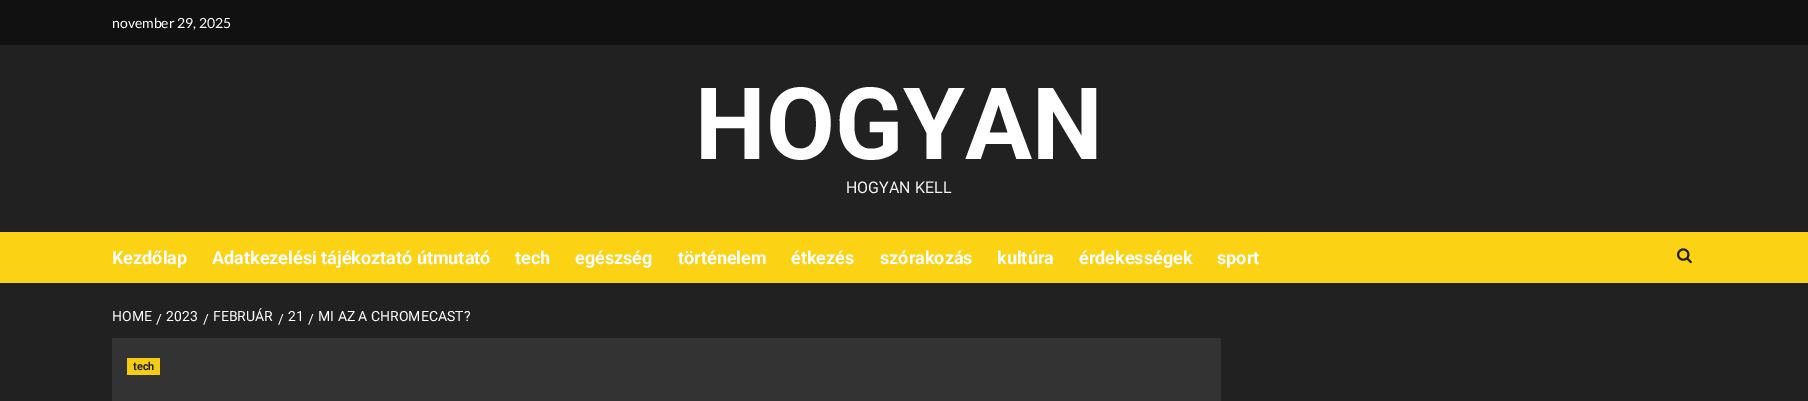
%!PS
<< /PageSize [1808 401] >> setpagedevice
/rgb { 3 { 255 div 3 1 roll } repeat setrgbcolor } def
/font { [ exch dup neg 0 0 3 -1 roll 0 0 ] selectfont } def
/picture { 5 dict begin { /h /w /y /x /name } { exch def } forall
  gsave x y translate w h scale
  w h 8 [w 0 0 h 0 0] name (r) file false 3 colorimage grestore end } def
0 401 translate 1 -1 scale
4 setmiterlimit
33 33 33 rgb
0 0 1808 401 rectfill
17 17 17 rgb
0 0 1808 45 rectfill
252 210 21 rgb
0 232 1808 51 rectfill
(img/1.rgb) 1677 248 15 16 picture
51 51 51 rgb
112 338 1109 63 rectfill
244 204 22 rgb
127 358 33 17 rectfill
/Lato-Regular 14 font
255 255 255 rgb
112 28 moveto (november 29, 2025) show
/Roboto-Bold 100 font
695 159 moveto (HOGYAN) show
/Roboto-Regular 16 font
243 243 243 rgb
846 193 moveto (HOGYAN KELL) show
/Roboto-Bold 18 font
255 255 255 rgb
[
  [(Kezdőlap) 112 264]
  [(Adatkezelési tájékoztató útmutató) 212 264]
  [(tech) 515 264]
  [(egészség) 575 264]
  [(történelem) 678 264]
  [(étkezés) 791 264]
  [(szórakozás) 880 264]
  [(kultúra) 997 264]
  [(érdekességek) 1079 264]
  [(sport) 1217 264]
] { aload pop moveto show } forall
/Roboto-Regular 14 font
[
  [(HOME) 112 321]
  [(/) 156 324]
  [(2023) 166 321]
  [(/) 203 324]
  [(FEBRUÁR) 213 321]
  [(/) 278 324]
  [(21) 288 321]
  [(/) 308 324]
  [(MI AZ A CHROMECAST?) 318 321]
] { aload pop moveto show } forall
/Roboto-Bold 11 font
34 34 34 rgb
133 370 moveto (tech) show
showpage
